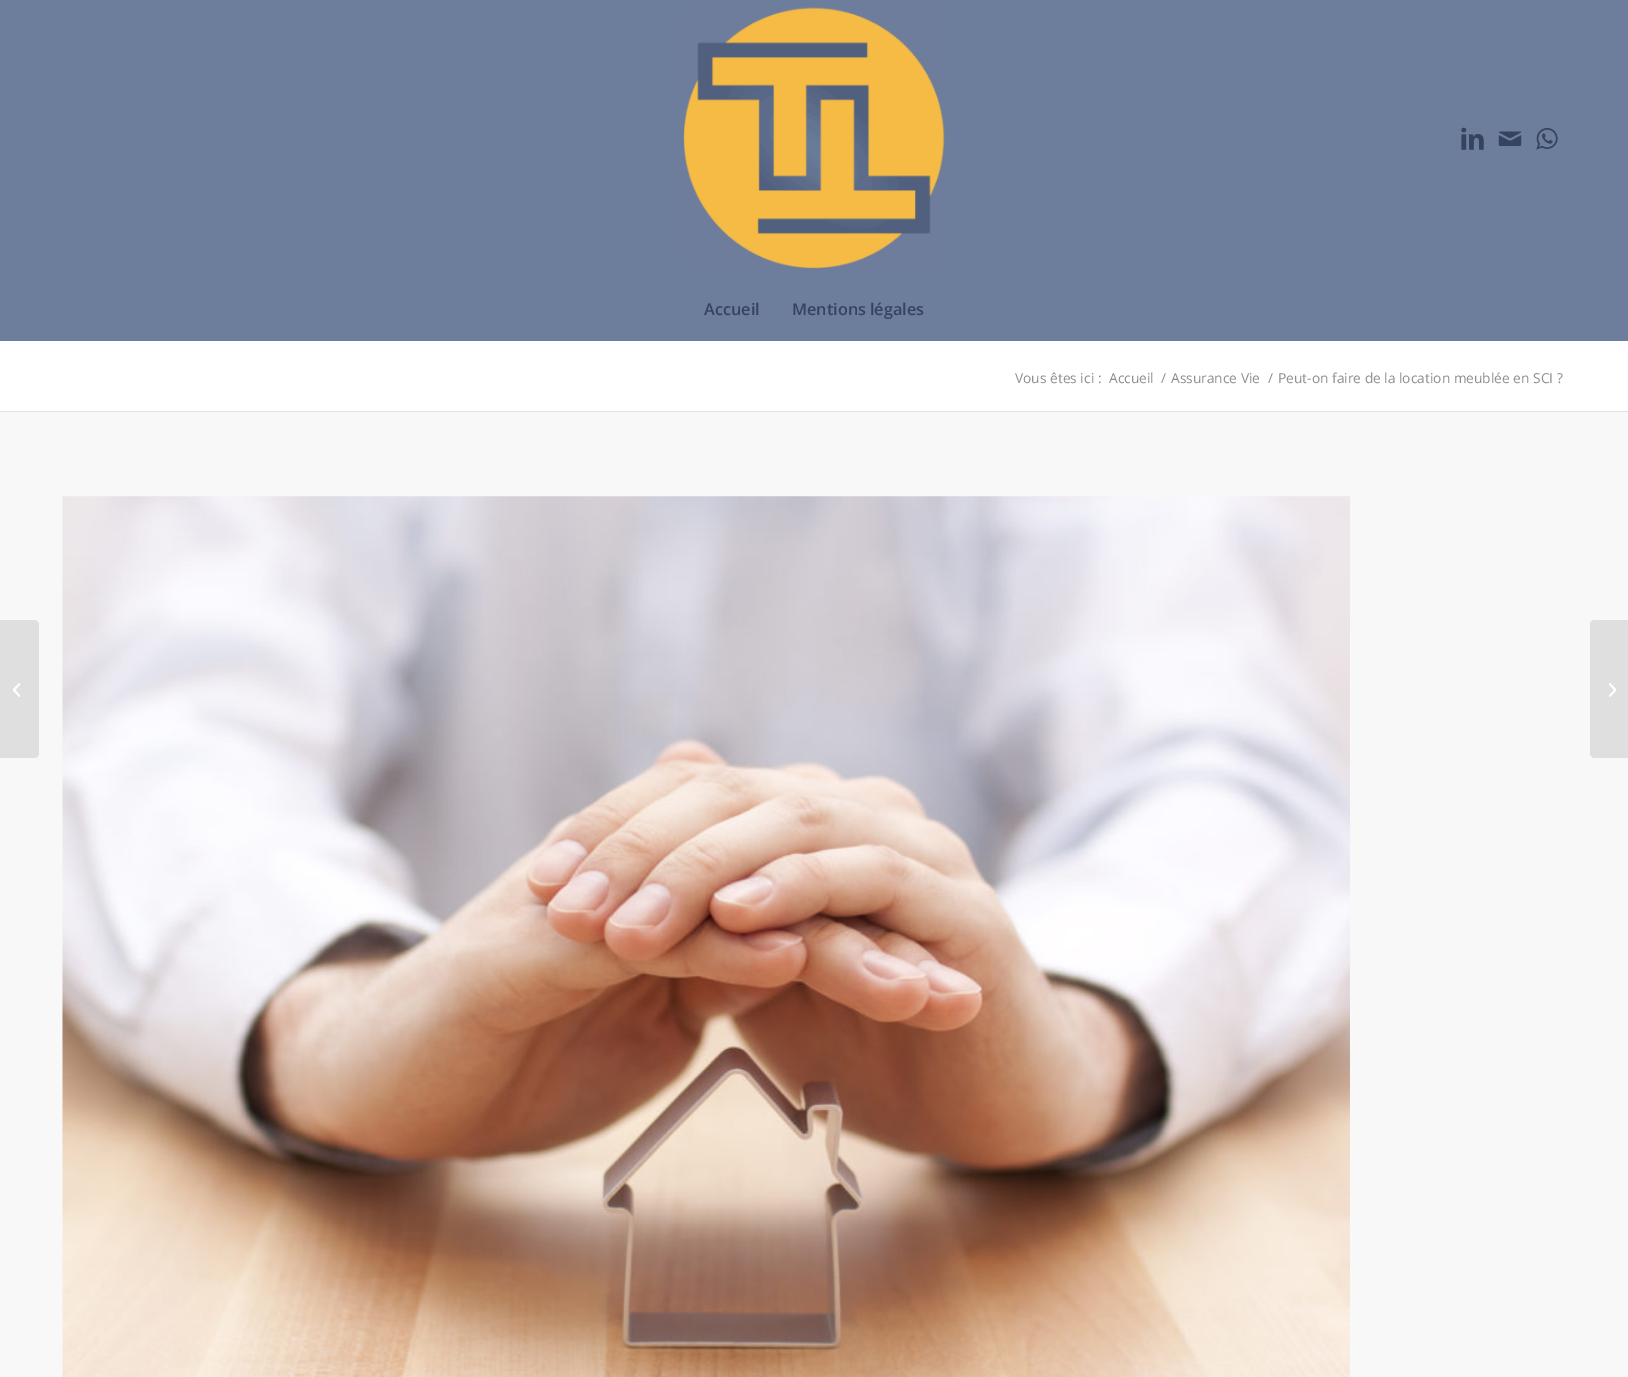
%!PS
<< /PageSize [1628 1377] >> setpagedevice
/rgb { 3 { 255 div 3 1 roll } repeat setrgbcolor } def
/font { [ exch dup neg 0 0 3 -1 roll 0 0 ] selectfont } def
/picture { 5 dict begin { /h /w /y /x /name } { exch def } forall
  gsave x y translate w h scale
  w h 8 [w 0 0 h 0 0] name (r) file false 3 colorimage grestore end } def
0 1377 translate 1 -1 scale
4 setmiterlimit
109 125 156 rgb
0 0 1628 1377 rectfill
(img/1.rgb) 683 7 262 262 picture
(img/2.rgb) 1461 127 23 23 picture
(img/3.rgb) 1498 131 24 15 picture
(img/4.rgb) 1536 128 22 22 picture
[
  [0 341 1628 70 255 255 255]
  [0 412 1628 965 248 248 248]
  [0 411 1628 1 225 225 225]
] { aload pop rgb rectfill } forall
(img/5.rgb) 62 496 1288 881 picture
223 223 223 rgb
0 620 moveto 34 620 lineto 37 620 39 622 39 625 curveto 39 753 lineto 39 756 37 758 34 758 curveto 0 758 lineto closepath fill
(img/6.rgb) 13 683 7 14 picture
1595 620 moveto 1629 620 lineto 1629 758 lineto 1595 758 lineto 1592 758 1590 756 1590 753 curveto 1590 625 lineto 1590 622 1592 620 1595 620 curveto closepath fill
(img/7.rgb) 1609 683 7 14 picture
/OpenSans-SemiBold 16.25 font
53 67 94 rgb
704 315 moveto (Accueil) show
792 315 moveto (Mentions légales) show
/OpenSans-Regular 13.75 font
141 141 141 rgb
[
  [(Vous êtes ici :) 1015 383]
  [(Accueil) 1109 383]
  [(/) 1161 383]
  [(Assurance Vie) 1171 383]
  [(/) 1268 383]
  [(Peut-on faire de la location meublée en SCI ?) 1278 383]
] { aload pop moveto show } forall
showpage
